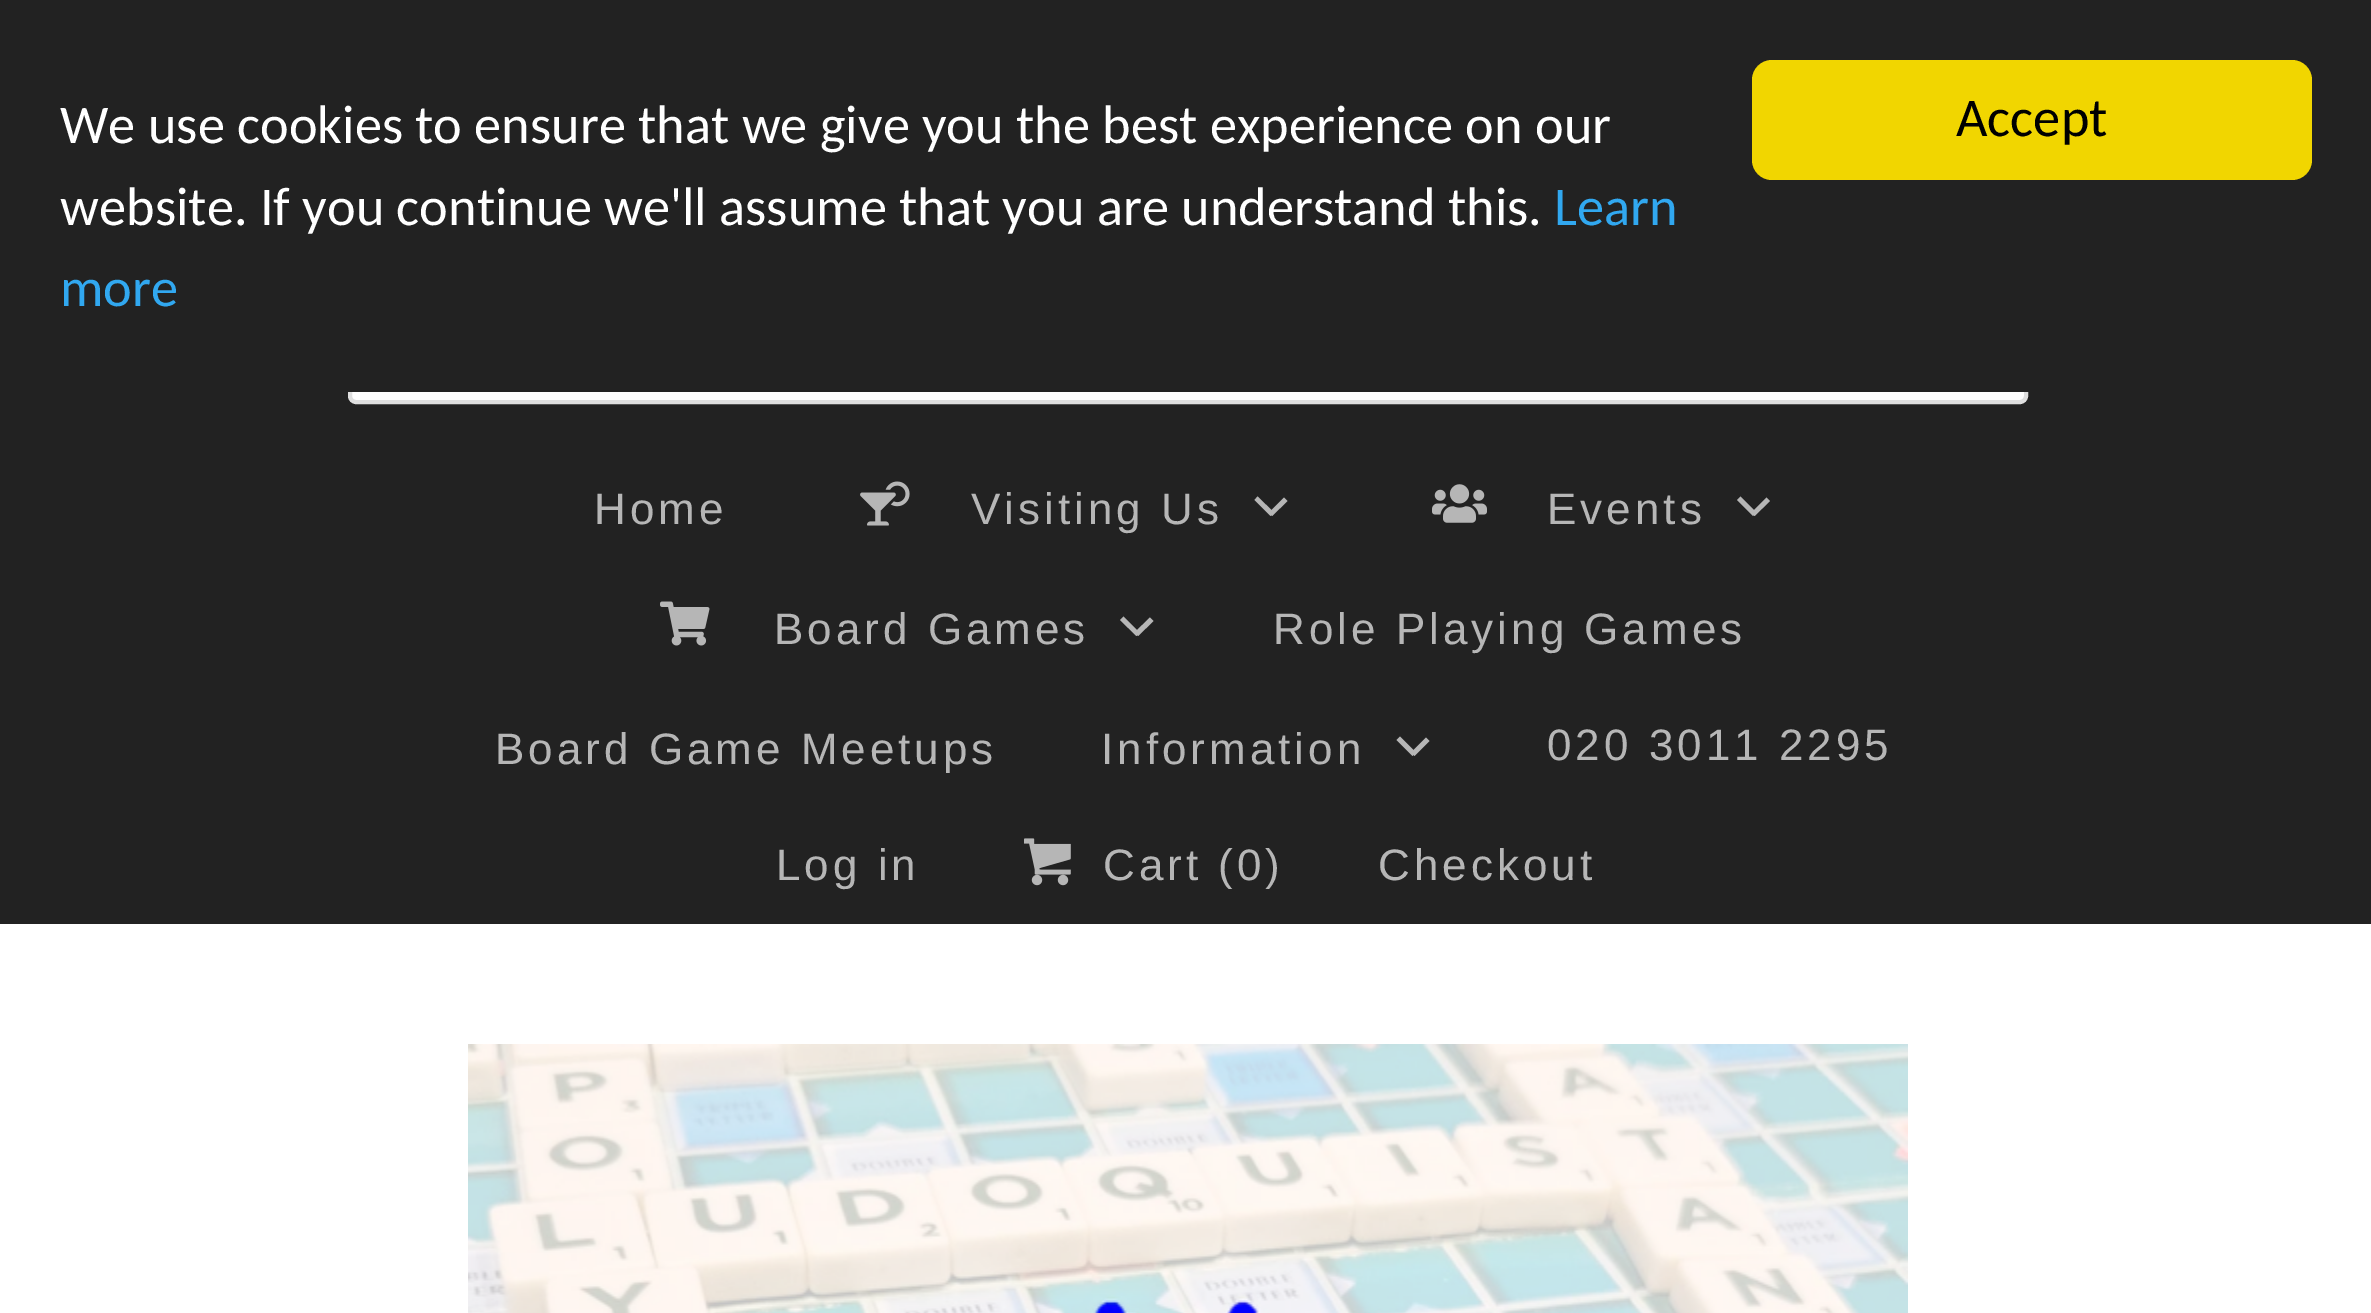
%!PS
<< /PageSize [2371 1313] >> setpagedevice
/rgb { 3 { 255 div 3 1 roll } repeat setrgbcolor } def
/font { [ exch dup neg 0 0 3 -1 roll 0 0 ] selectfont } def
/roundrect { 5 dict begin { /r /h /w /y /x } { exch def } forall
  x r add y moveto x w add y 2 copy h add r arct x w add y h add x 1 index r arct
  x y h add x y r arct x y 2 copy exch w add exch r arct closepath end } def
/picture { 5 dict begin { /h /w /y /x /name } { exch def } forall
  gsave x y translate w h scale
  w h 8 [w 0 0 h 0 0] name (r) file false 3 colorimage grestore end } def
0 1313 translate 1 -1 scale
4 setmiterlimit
255 255 255 rgb
0 0 2371 1313 rectfill
34 34 34 rgb
0 392 2371 532 rectfill
255 255 255 rgb
350 286 1676 116 6 roundrect gsave fill grestore
223 223 223 rgb
4 setlinewidth
stroke
34 34 34 rgb
0 0 2371 392 rectfill
241 214 0 rgb
1752 60 560 120 20 roundrect fill
(img/1.rgb) 860 481 50 45 picture
182 182 182 rgb
1284 497.5 moveto 1287.5 501 lineto 1272 516 lineto 1269 512.5 lineto closepath fill
1257.5 496.5 moveto 1274 512.5 lineto 1270.5 516 lineto 1254.5 500 lineto closepath fill
(img/2.rgb) 1432 484 55 39 picture
1766.5 497.5 moveto 1770 501 lineto 1754.5 516 lineto 1751.5 512.5 lineto closepath fill
1740.5 496.5 moveto 1756.5 512.5 lineto 1753 516 lineto 1737 500 lineto closepath fill
(img/3.rgb) 660 601 50 45 picture
1150 617.5 moveto 1153.5 621 lineto 1138 636 lineto 1134.5 632.5 lineto closepath fill
1123.5 616.5 moveto 1139.5 632.5 lineto 1136.5 636 lineto 1120 620 lineto closepath fill
1426 737.5 moveto 1429.5 741 lineto 1414.5 756 lineto 1411 752.5 lineto closepath fill
1400 736.5 moveto 1416 752.5 lineto 1412.5 756 lineto 1396.5 740 lineto closepath fill
(img/4.rgb) 1024 838 47 48 picture
(img/5.rgb) 468 1044 1440 269 picture
/Carlito-Regular 54.4 font
255 255 255 rgb
60 143 moveto (We use cookies to ensure that we give you the best experience on our) show
60 225 moveto (website. If you continue we'll assume that you are understand this.) show
49 168 240 rgb
1554 225 moveto (Learn) show
60 306 moveto (more) show
0 0 0 rgb
1956 136 moveto (Accept) show
/LiberationSans-Regular 44 font
182 182 182 rgb
594 524 moveto 4 0 (Home) ashow
971 524 moveto 4 0 (Visiting Us) ashow
1547 524 moveto 4 0 (Events) ashow
774 644 moveto 4 0 (Board Games) ashow
1273 644 moveto 4 0 (Role Playing Games) ashow
495 764 moveto 4 0 (Board Game Meetups) ashow
1101 764 moveto 4 0 (Information) ashow
1547 760 moveto 4 0 (020 3011 2295) ashow
776 880 moveto 4 0 (Log in) ashow
1103 880 moveto 4 0 (Cart \(0\)) ashow
1378 880 moveto 4 0 (Checkout) ashow
showpage
